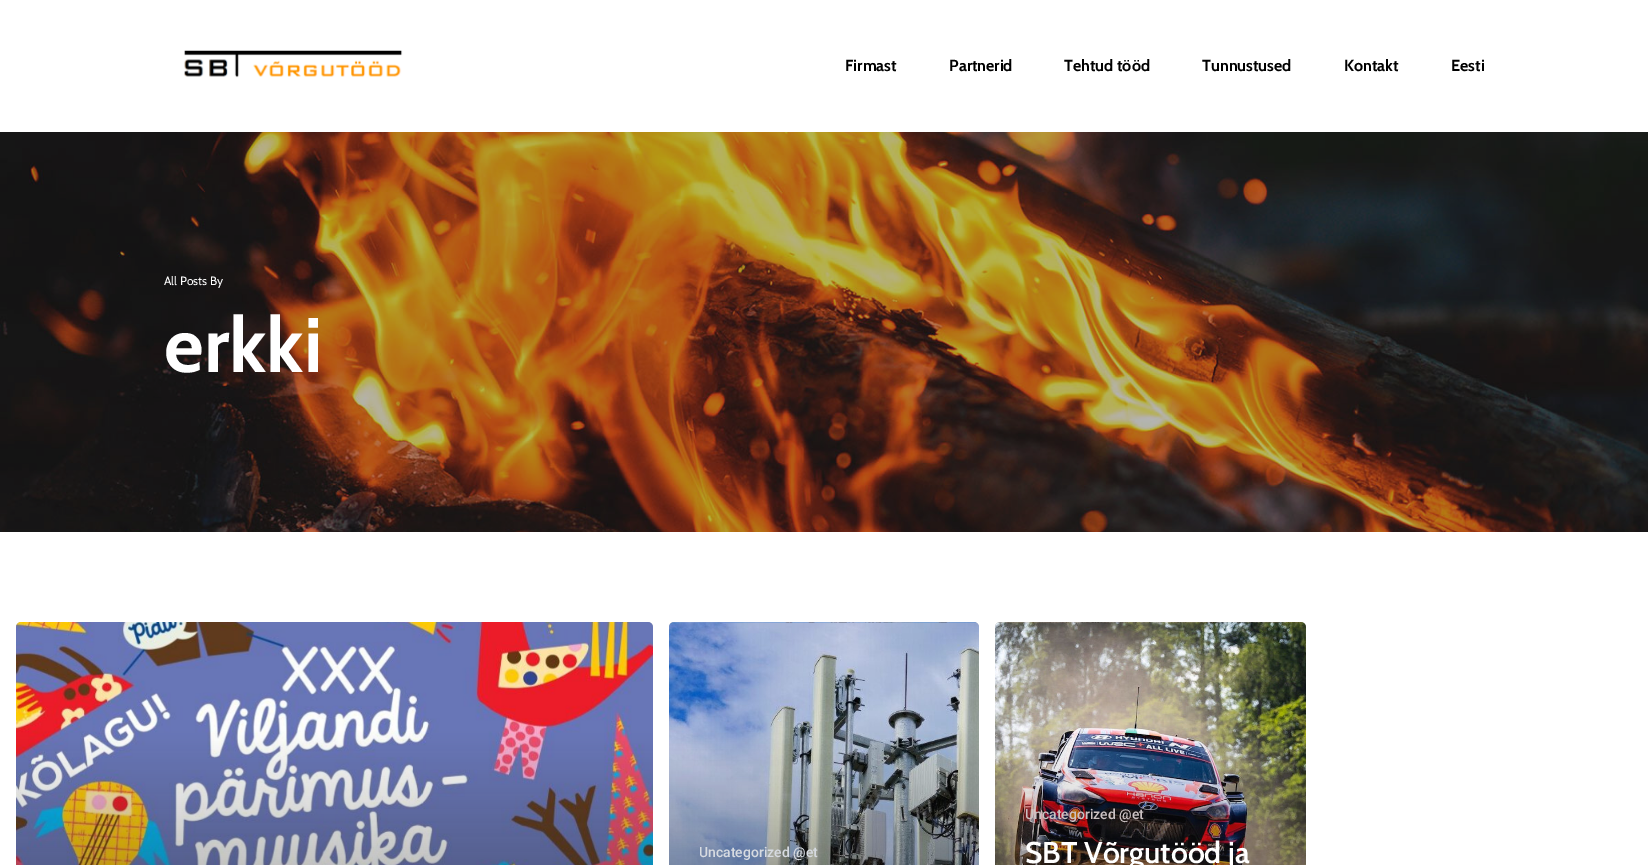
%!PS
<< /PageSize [1648 865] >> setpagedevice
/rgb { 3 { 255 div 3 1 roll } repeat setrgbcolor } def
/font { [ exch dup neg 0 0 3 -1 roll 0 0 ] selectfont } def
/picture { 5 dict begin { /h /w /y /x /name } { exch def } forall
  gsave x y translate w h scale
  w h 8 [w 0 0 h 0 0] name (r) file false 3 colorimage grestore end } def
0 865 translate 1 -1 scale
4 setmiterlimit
255 255 255 rgb
0 0 1648 865 rectfill
(img/1.rgb) 184 50 219 28 picture
(img/2.rgb) 0 132 1648 400 picture
(img/3.rgb) 16 622 637 243 picture
(img/4.rgb) 669 622 310 243 picture
(img/5.rgb) 995 622 311 243 picture
/Cabin-Bold 16 font
0 0 0 rgb
[
  [(Firmast) 845 71]
  [(Partnerid) 949 71]
  [(Tehtud tööd) 1064 71]
  [(Tunnustused) 1202 71]
  [(Kontakt) 1344 71]
  [(Eesti) 1451 71]
] { aload pop moveto show } forall
/Cabin-Regular 12 font
255 255 255 rgb
164 285 moveto (All Posts By) show
/Cabin-Bold 77 font
164 372 moveto (erkki) show
/Roboto-Medium 14 font
215 219 225 rgb
699 857 moveto (Uncategorized @et) show
203 194 195 rgb
1025 819 moveto (Uncategorized @et) show
/Cabin-SemiBold 30 font
255 255 255 rgb
1025 863 moveto (SBT Võrgutööd ja) show
showpage
